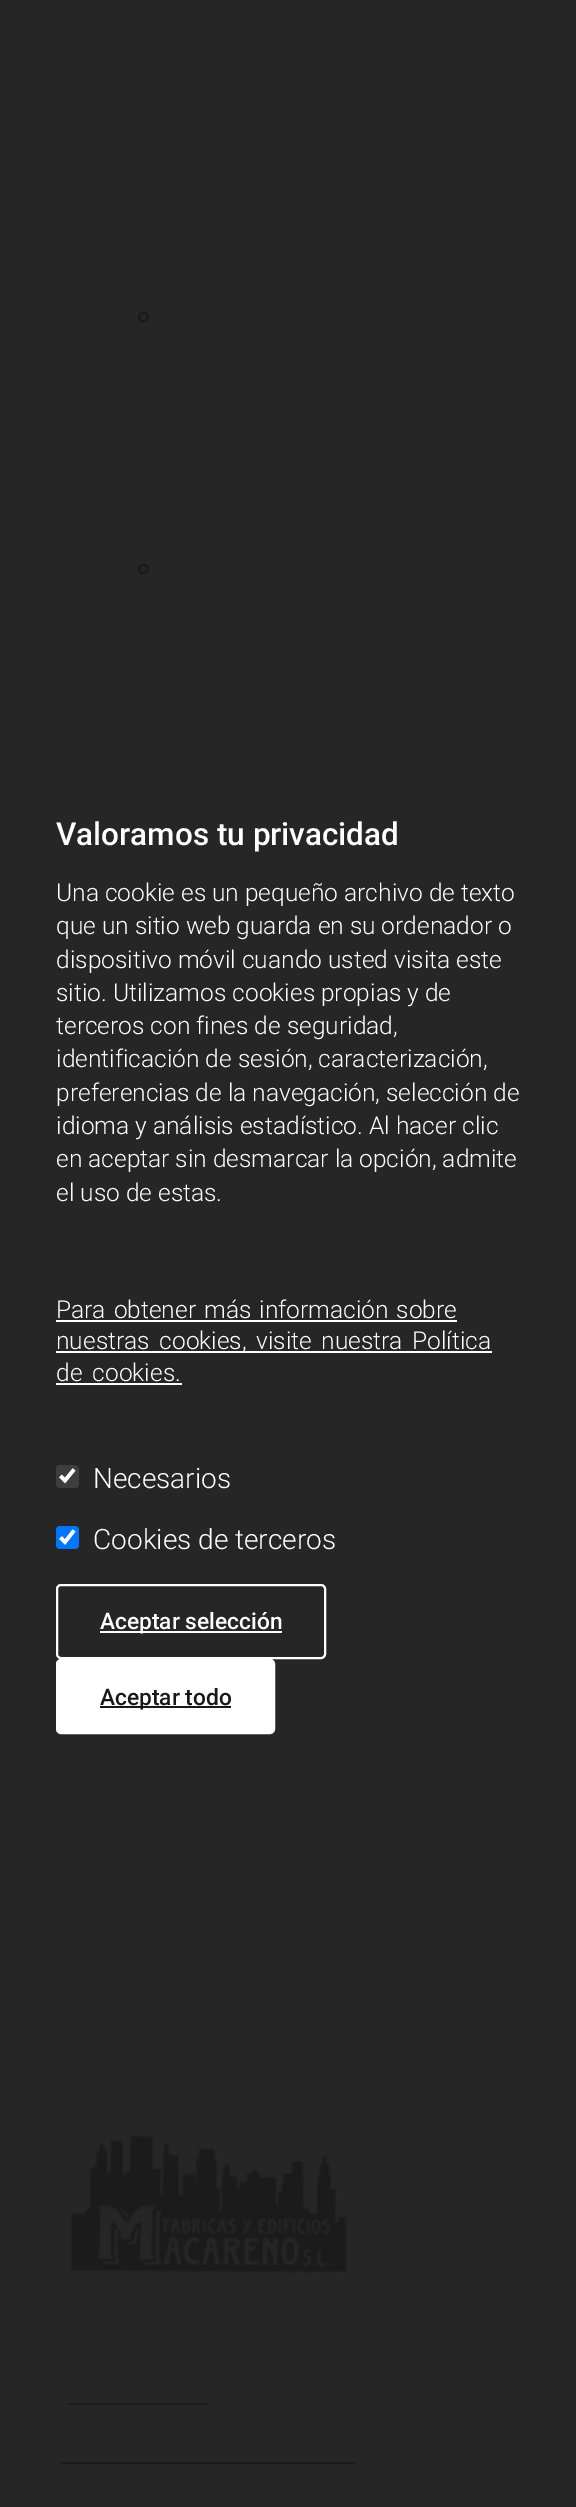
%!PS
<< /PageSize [576 2507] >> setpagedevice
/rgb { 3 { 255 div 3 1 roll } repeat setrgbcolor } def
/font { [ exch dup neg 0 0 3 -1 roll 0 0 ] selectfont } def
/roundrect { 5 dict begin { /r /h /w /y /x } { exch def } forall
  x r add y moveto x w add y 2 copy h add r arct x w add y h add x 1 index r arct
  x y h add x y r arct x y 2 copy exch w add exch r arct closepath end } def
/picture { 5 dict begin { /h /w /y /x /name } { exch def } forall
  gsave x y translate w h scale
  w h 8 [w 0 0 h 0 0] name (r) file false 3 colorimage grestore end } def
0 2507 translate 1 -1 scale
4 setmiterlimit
38 38 38 rgb
0 0 576 2507 rectfill
26 26 26 rgb
2 setlinewidth
139 313 9 8 4 roundrect stroke
139 565 9 8 4 roundrect stroke
(img/1.rgb) 66 2120 287 162 picture
[
  [68 2403 140 2 26 26 38]
  [61 2462 294 2 26 26 38]
  [56 1320 401 2 255 255 255]
  [56 1351 436 2 255 255 255]
  [56 1383 126 2 255 255 255]
] { aload pop rgb rectfill } forall
62 62 62 rgb
56 1465 23 23 4 roundrect fill
255 255 255 rgb
3.6 setlinewidth
60.5 1476 moveto 65 1480.5 lineto 74 1469.5 lineto stroke
0 117 255 rgb
56 1526 23 23 4 roundrect fill
255 255 255 rgb
60.5 1537.5 moveto 65 1542 lineto 74 1530.5 lineto stroke
2 setlinewidth
57 1585 268 73 4 roundrect stroke
100 1631 182 2 rectfill
57 1660 217 73 4 roundrect gsave fill grestore
stroke
24 24 24 rgb
100 1706 131 2 rectfill
/Roboto-Medium 31.5 font
255 255 255 rgb
56 845 moveto (Valoramos tu privacidad) show
/Roboto-Light 24.5 font
[
  [(Una cookie es un pequeño archivo de texto) 56 901]
  [(que un sitio web guarda en su ordenador o) 56 934]
  [(dispositivo móvil cuando usted visita este) 56 968]
  [(sitio. Utilizamos cookies propias y de) 56 1001]
  [(terceros con fines de seguridad,) 56 1034]
  [(identificación de sesión, caracterización,) 56 1067]
  [(preferencias de la navegación, selección de) 56 1101]
  [(idioma y análisis estadístico. Al hacer clic) 56 1134]
  [(en aceptar sin desmarcar la opción, admite) 56 1167]
  [(el uso de estas.) 56 1201]
] { aload pop moveto show } forall
56 1318 moveto 2 0 32 (Para obtener más información sobre) widthshow
56 1349 moveto 3.5 0 32 (nuestras cookies, visite nuestra Política) widthshow
56 1381 moveto 4 0 32 (de cookies.) widthshow
/Roboto-Light 28 font
93 1488 moveto (Necesarios) show
93 1549 moveto (Cookies de terceros) show
/Roboto-Medium 22.75 font
100 1629 moveto (Aceptar selección) show
24 24 24 rgb
100 1705 moveto (Aceptar todo) show
showpage
